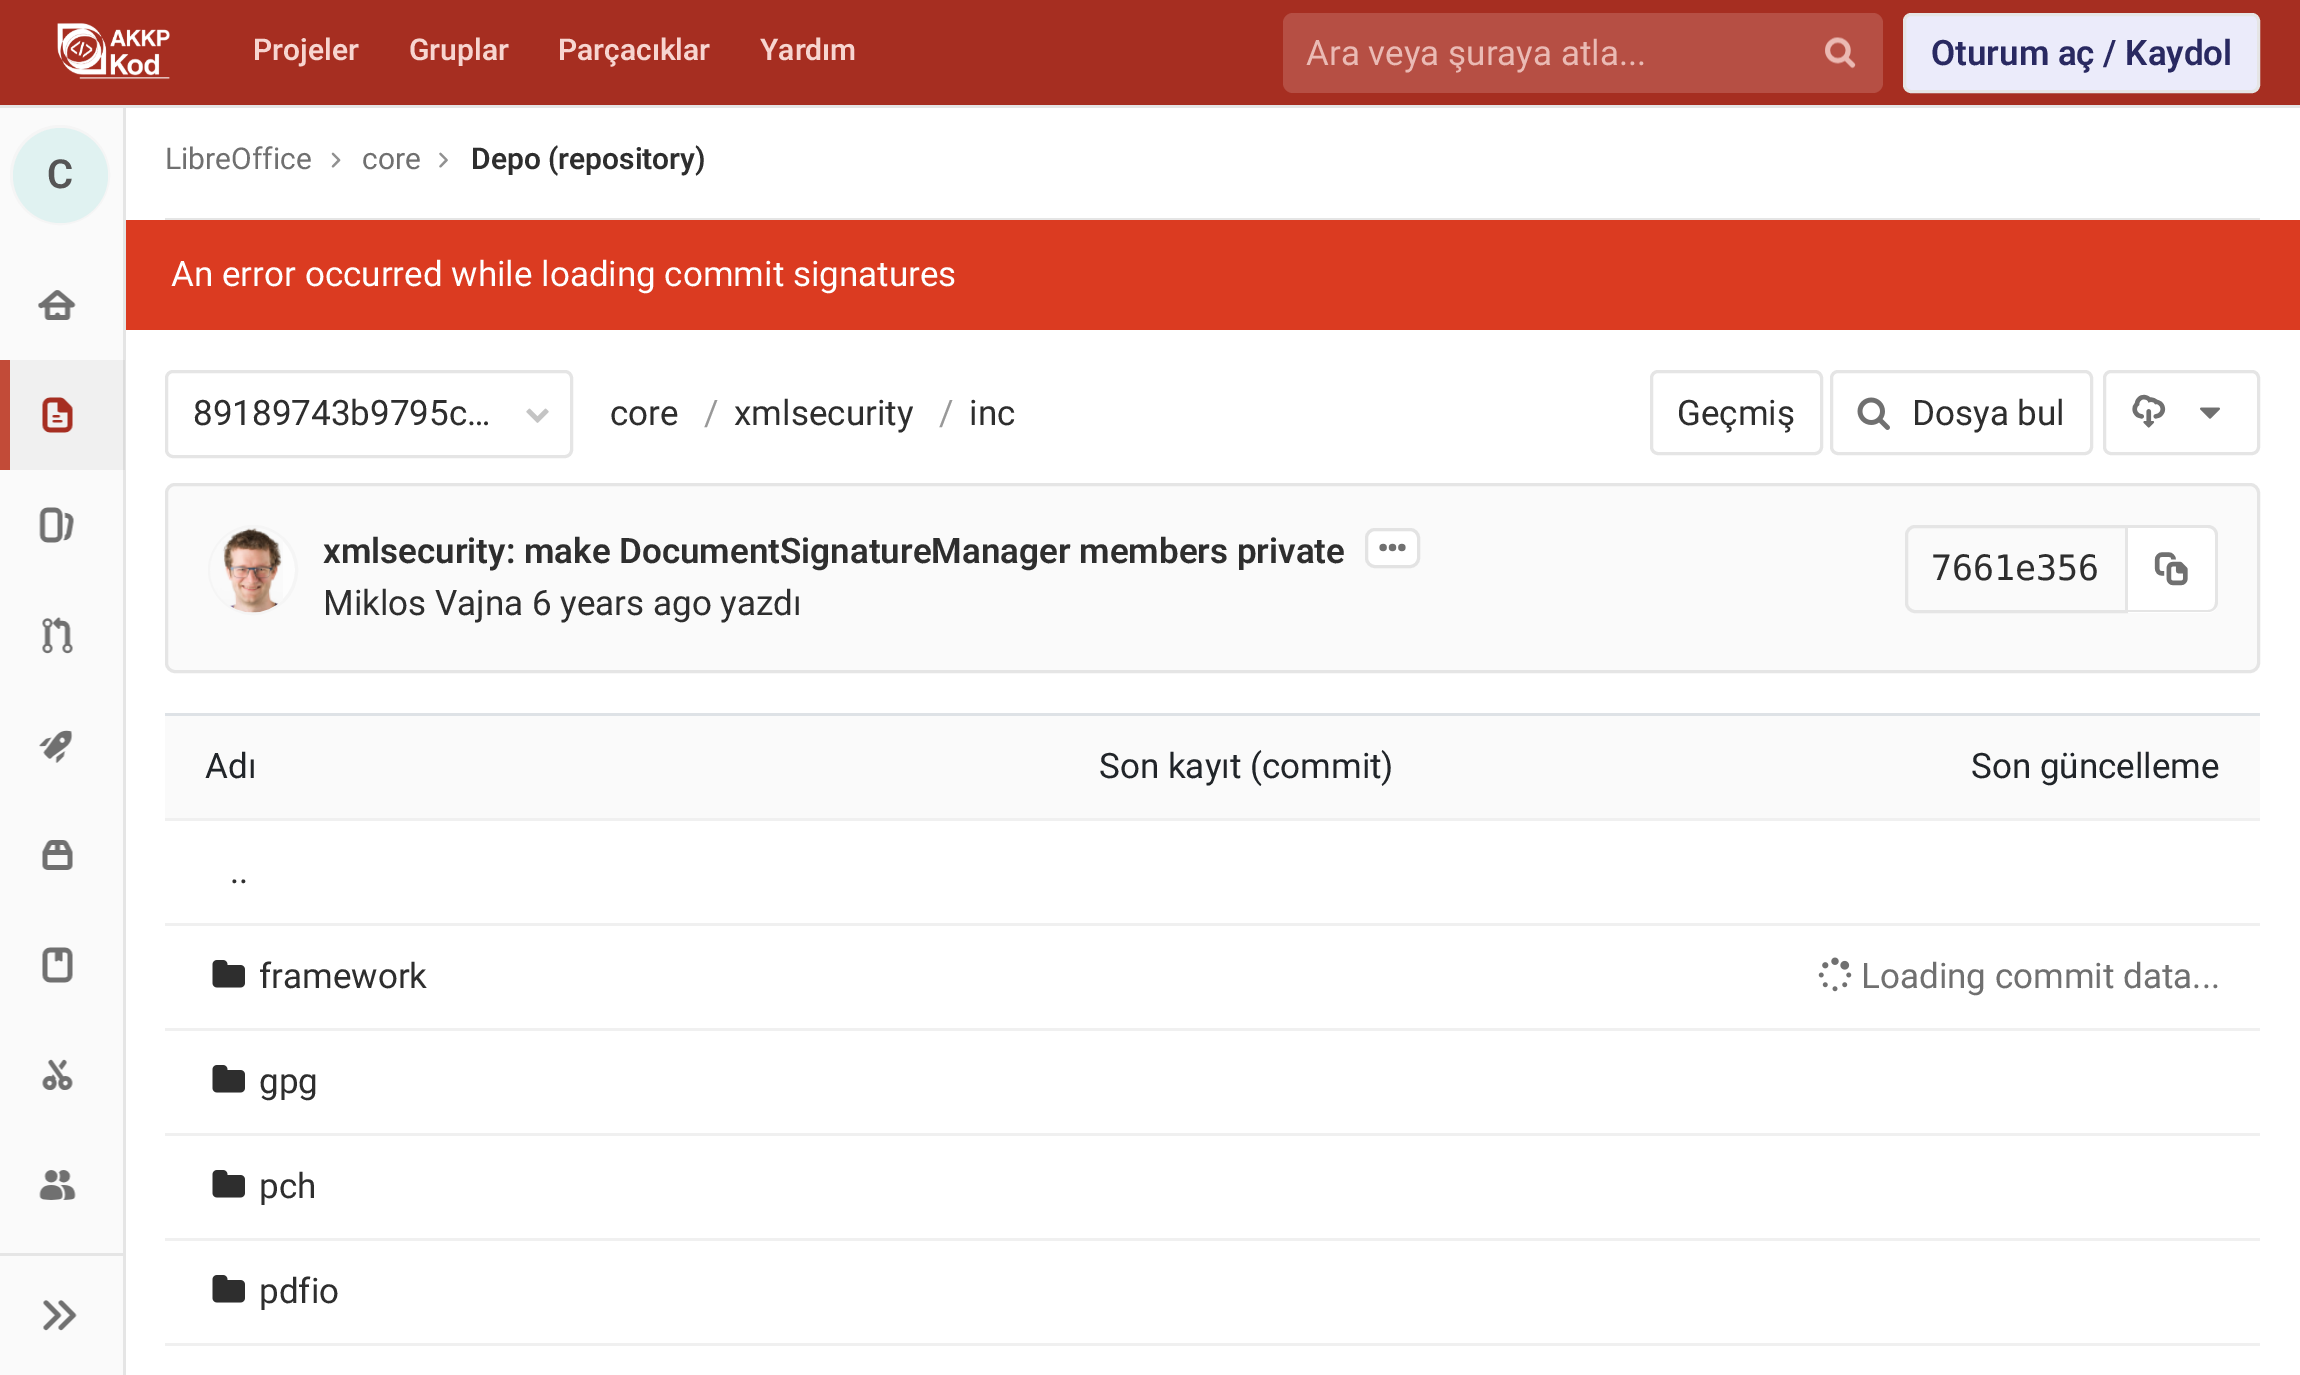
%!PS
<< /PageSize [2300 1375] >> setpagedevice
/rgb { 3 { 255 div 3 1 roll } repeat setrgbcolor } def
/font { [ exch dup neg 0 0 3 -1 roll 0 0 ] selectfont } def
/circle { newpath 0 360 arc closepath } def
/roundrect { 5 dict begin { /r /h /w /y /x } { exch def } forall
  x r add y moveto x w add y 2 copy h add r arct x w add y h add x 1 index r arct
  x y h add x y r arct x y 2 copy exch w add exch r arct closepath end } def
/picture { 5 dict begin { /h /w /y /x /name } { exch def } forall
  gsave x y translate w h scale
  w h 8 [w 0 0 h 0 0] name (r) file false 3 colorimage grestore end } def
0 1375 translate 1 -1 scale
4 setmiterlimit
255 255 255 rgb
0 0 2300 1375 rectfill
[
  [123 100 3 1275 229 229 229]
  [0 0 2300 105 166 46 33]
  [0 105 2300 3 229 229 229]
] { aload pop rgb rectfill } forall
(img/1.rgb) 57 23 113 57 picture
182 79 68 rgb
1283 13 600 80 10 roundrect fill
(img/2.rgb) 1825 37 31 32 picture
235 235 250 rgb
1904.5 14.5 354 77 6.5 roundrect gsave fill grestore
229 229 229 rgb
3 setlinewidth
stroke
[
  [0 108 123 1267 250 250 250]
  [10 360 113 110 240 240 240]
  [123 360 2 110 220 220 220]
] { aload pop rgb rectfill } forall
255 255 255 rgb
60 175 48.5 circle gsave fill grestore
245 245 245 rgb
stroke
224 242 241 rgb
60.5 175.5 47.5 circle fill
(img/3.rgb) 38 290 38 30 picture
194 75 56 rgb
0 360 10 110 rectfill
(img/4.rgb) 42 397 31 36 picture
(img/5.rgb) 39 507 35 36 picture
(img/6.rgb) 42 617 31 37 picture
(img/7.rgb) 39 730 34 33 picture
(img/8.rgb) 42 840 31 30 picture
(img/9.rgb) 42 947 31 36 picture
(img/10.rgb) 42 1059 31 31 picture
(img/11.rgb) 39 1170 37 30 picture
229 229 229 rgb
0 1253 123 3 rectfill
(img/12.rgb) 43 1300 34 31 picture
165 218 2095 2 rectfill
(img/13.rgb) 331 152 10 16 picture
(img/14.rgb) 439 152 9 16 picture
219 59 33 rgb
126 220 2174 110 rectfill
229 229 229 rgb
166.5 371.5 405 85 6.5 roundrect stroke
(img/15.rgb) 526 408 23 15 picture
1651.5 371.5 170 82 6.5 roundrect stroke
1831.5 371.5 260 82 6.5 roundrect stroke
(img/16.rgb) 1857 397 33 33 picture
2104.5 371.5 154 82 6.5 roundrect stroke
(img/17.rgb) 2132 394 34 34 picture
(img/18.rgb) 2200 407 20 12 picture
250 250 250 rgb
166.5 484.5 2092 187 8.5 roundrect gsave fill grestore
229 229 229 rgb
stroke
253 253 253 rgb
253 570 43.5 circle gsave fill grestore
245 245 245 rgb
stroke
(img/19.rgb) 210 528 73 85 picture
255 255 255 rgb
1366.5 529.5 52 37 8.5 roundrect gsave fill grestore
227 227 227 rgb
stroke
(img/20.rgb) 1379 543 27 9 picture
229 229 229 rgb
1915 526.5 moveto 2126.5 526.5 lineto 2126.5 611.5 lineto 1915 611.5 lineto 1910.5 611.5 1906.5 607.5 1906.5 603 curveto 1906.5 535 lineto 1906.5 530.5 1910.5 526.5 1915 526.5 curveto closepath stroke
255 255 255 rgb
2128 525 moveto 2208 525 lineto 2213.5 525 2218 529.5 2218 535 curveto 2218 603 lineto 2218 608.5 2213.5 613 2208 613 curveto 2128 613 lineto closepath fill
229 229 229 rgb
2128 525 moveto 2208 525 lineto 2213 525 2218 529 2218 535 curveto 2218 602 lineto 2218 608 2213 612 2208 612 curveto 2128 612 lineto closepath 2128 528 moveto 2208 528 lineto 2212 528 2215 531 2215 535 curveto 2215 602 lineto 2215 607 2212 610 2208 610 curveto 2128 610 lineto closepath eofill
(img/21.rgb) 2154 552 34 34 picture
[
  [165 716 2095 102 250 250 250]
  [165 713 2095 3 222 226 230]
  [165 818 2095 3 240 240 240]
  [165 923 2095 3 240 240 240]
] { aload pop rgb rectfill } forall
(img/22.rgb) 212 960 33 28 picture
(img/23.rgb) 1818 957 34 35 picture
165 1028 2095 3 rectfill
(img/22.rgb) 212 1065 33 28 picture
165 1133 2095 3 rectfill
(img/22.rgb) 212 1170 33 28 picture
165 1238 2095 3 rectfill
(img/22.rgb) 212 1275 33 28 picture
165 1343 2095 3 rectfill
/Roboto-SemiBold 30 font
247 213 208 rgb
[
  [(Projeler) 253 60]
  [(Gruplar) 409 60]
  [(Parçacıklar) 558 60]
  [(Yardım) 760 60]
] { aload pop moveto show } forall
/Roboto-Regular 35 font
234 186 180 rgb
1306 65 moveto (Ara veya şuraya atla...) show
/Roboto-SemiBold 35 font
41 41 97 rgb
1931 65 moveto (Oturum aç / Kaydol) show
/Roboto-SemiBold 40 font
85 85 85 rgb
47 188 moveto (C) show
/Roboto-Regular 30 font
112 112 112 rgb
165 169 moveto (LibreOffice) show
362 169 moveto (core) show
/Roboto-SemiBold 30 font
46 46 46 rgb
471 169 moveto (Depo \(repository\)) show
/Roboto-Regular 35 font
255 255 255 rgb
171 286 moveto (An error occurred while loading commit signatures) show
46 46 46 rgb
193 425 moveto (89189743b9795c…) show
610 425 moveto (core) show
153 153 153 rgb
704 425 moveto (/) show
46 46 46 rgb
734 425 moveto (xmlsecurity) show
153 153 153 rgb
939 425 moveto (/) show
46 46 46 rgb
[
  [(inc) 969 425]
  [(Geçmiş) 1677 425]
  [(Dosya bul) 1912 425]
] { aload pop moveto show } forall
/Roboto-SemiBold 35 font
323 563 moveto (xmlsecurity: make DocumentSignatureManager members private) show
/Roboto-Regular 35 font
323 615 moveto (Miklos Vajna 6 years ago yazdı) show
/DejaVuSansMono-Regular 35 font
1931 580 moveto (7661e356) show
/Roboto-Regular 35 font
33 37 41 rgb
[
  [(Adı) 205 778]
  [(Son kayıt \(commit\)) 1099 778]
  [(Son güncelleme) 1971 778]
] { aload pop moveto show } forall
46 46 46 rgb
230 883 moveto (..) show
259 988 moveto (framework) show
112 112 112 rgb
1861 988 moveto (Loading commit data...) show
46 46 46 rgb
[
  [(gpg) 259 1093]
  [(pch) 259 1198]
  [(pdfio) 259 1303]
] { aload pop moveto show } forall
showpage
